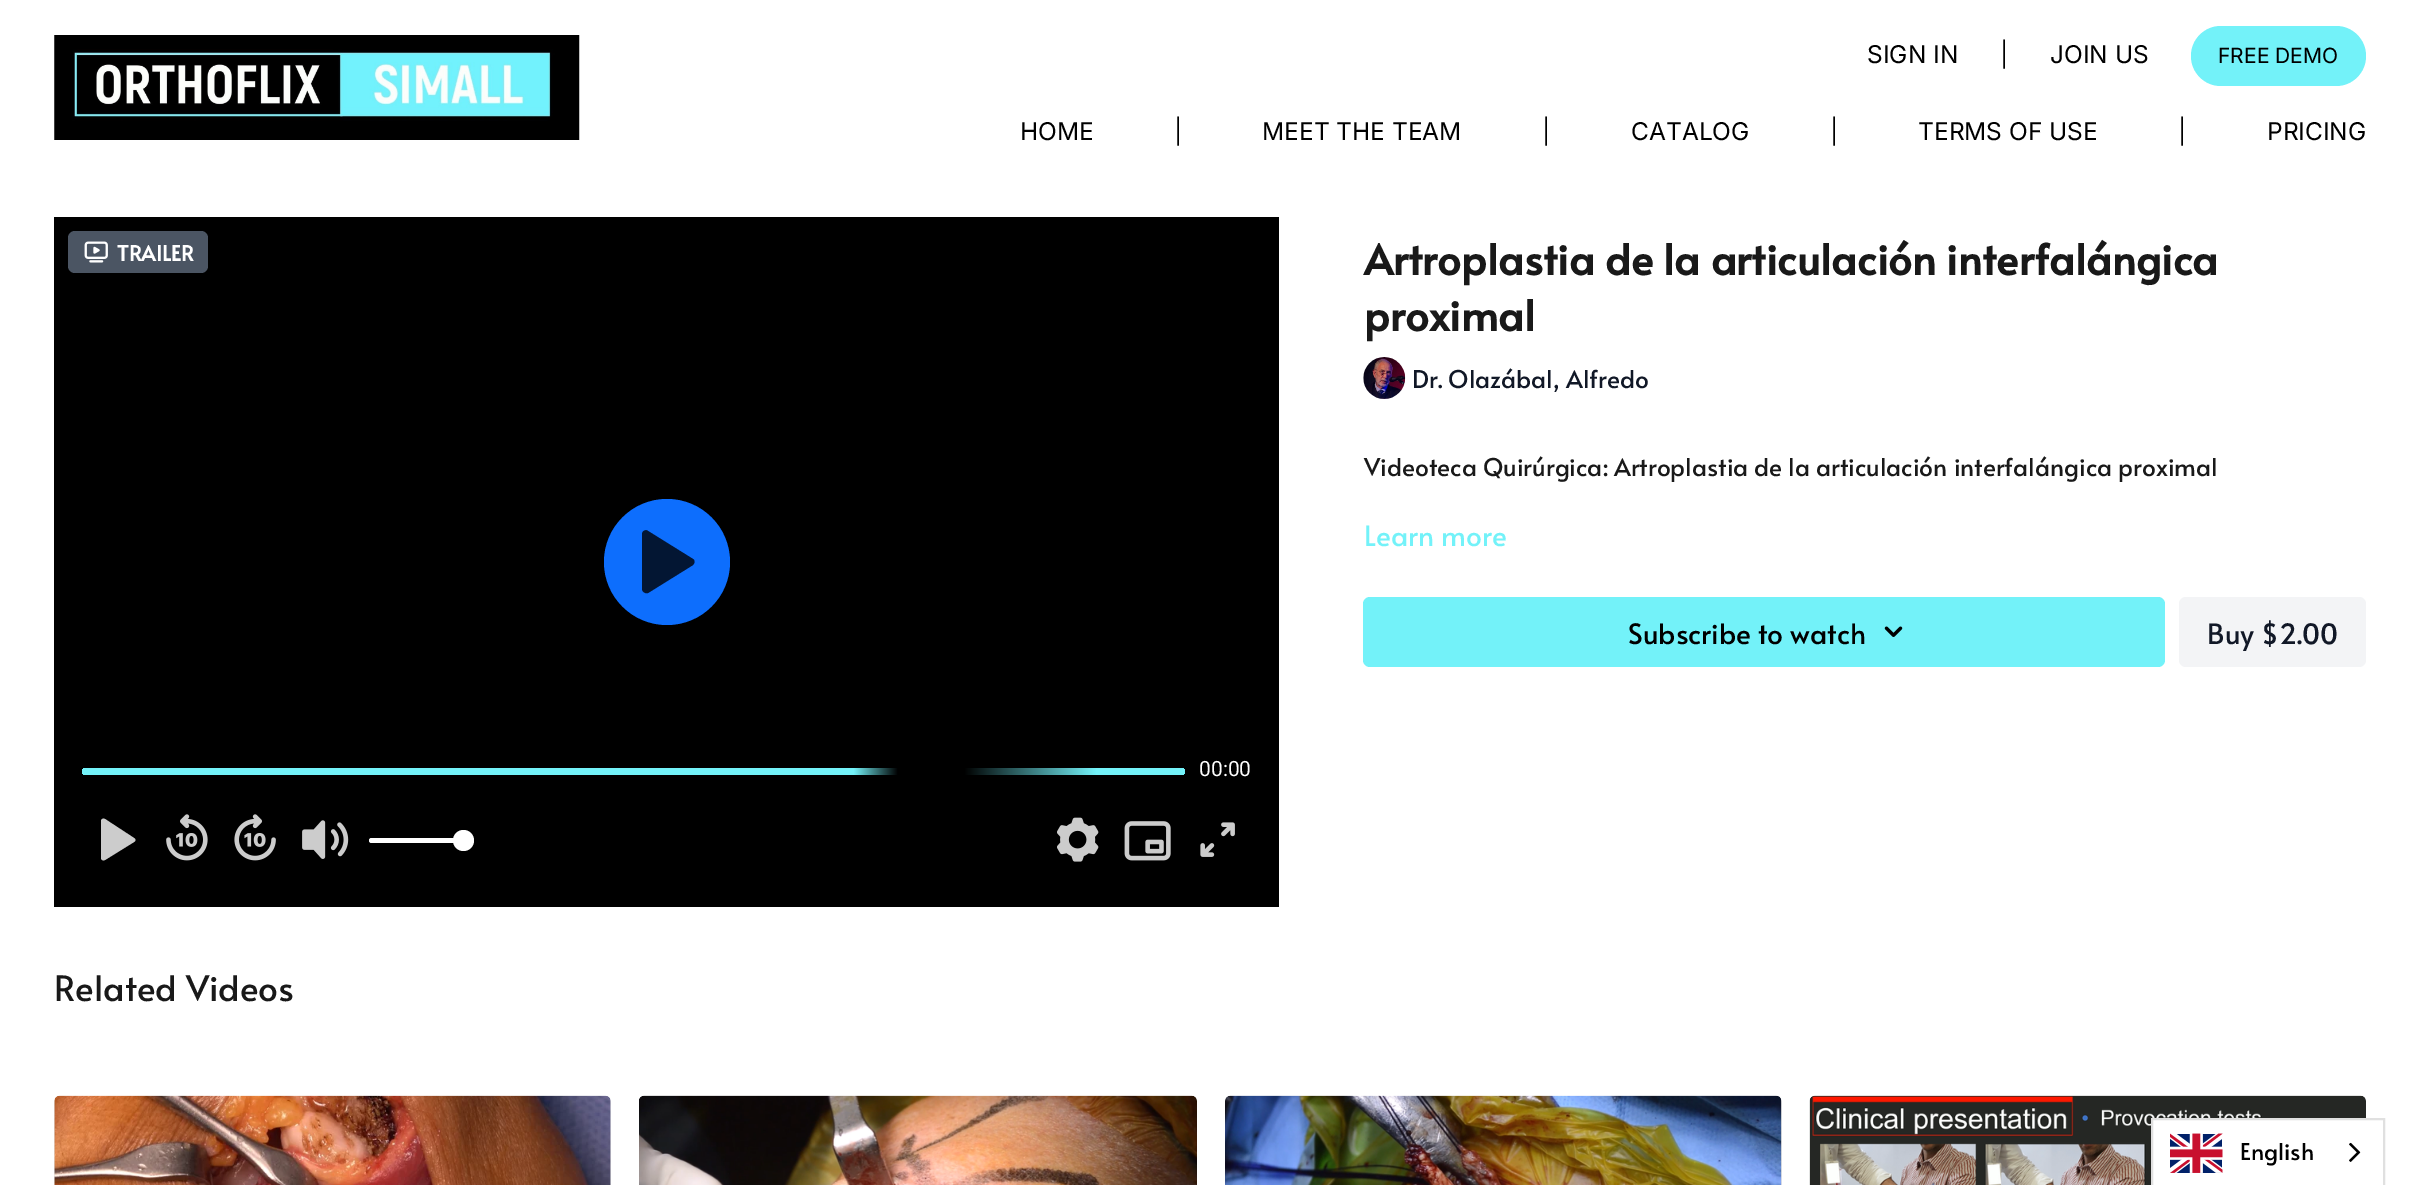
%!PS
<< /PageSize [2419 1185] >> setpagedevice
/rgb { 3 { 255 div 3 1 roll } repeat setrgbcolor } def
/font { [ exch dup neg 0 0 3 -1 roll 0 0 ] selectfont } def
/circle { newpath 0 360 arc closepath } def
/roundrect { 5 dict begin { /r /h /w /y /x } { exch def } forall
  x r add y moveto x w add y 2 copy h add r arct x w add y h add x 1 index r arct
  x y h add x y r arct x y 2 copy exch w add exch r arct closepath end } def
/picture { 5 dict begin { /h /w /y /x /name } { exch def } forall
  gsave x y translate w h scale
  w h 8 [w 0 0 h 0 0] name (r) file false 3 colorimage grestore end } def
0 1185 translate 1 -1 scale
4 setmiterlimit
255 255 255 rgb
0 0 2419 1185 rectfill
(img/1.rgb) 54 35 526 105 picture
115 242 249 rgb
2191 26 175 60 30 roundrect fill
0 0 0 rgb
54 217 1225 690 rectfill
75 85 99 rgb
68 231 140 42 7 roundrect fill
(img/2.rgb) 84 241 24 22 picture
13 110 253 rgb
667 562 63 circle fill
3 22 51 rgb
648 531 moveto 646 529 642 531 642 534 curveto 642 589 lineto 642 592 646 594 648 593 curveto 693 565 lineto 695 563 695 560 693 559 curveto closepath fill
gsave 82 768 1103 7 3.5 roundrect clip newpath
<< /ShadingType 2 /ColorSpace /DeviceRGB /Coords [82 775 2287 775] /Extend [true true] /Function << /FunctionType 3 /Domain [0 1] /Functions [<< /FunctionType 2 /Domain [0 1] /C0 [0.451 0.949 0.976] /C1 [0.451 0.949 0.976] /N 1 >> << /FunctionType 2 /Domain [0 1] /C0 [0.451 0.949 0.976] /C1 [0 0 0] /N 1 >> << /FunctionType 2 /Domain [0 1] /C0 [0 0 0] /C1 [0 0 0] /N 1 >> << /FunctionType 2 /Domain [0 1] /C0 [0 0 0] /C1 [0.451 0.949 0.976] /N 1 >> << /FunctionType 2 /Domain [0 1] /C0 [0.451 0.949 0.976] /C1 [0.451 0.949 0.976] /N 1 >>] /Bounds [0.35 0.37 0.4 0.46] /Encode [0 1 0 1 0 1 0 1 0 1] >> >> shfill grestore
204 204 204 rgb
105 819 moveto 103 818 101 819 101 821 curveto 101 858 lineto 101 860 103 861 105 860 curveto 134 842 lineto 136 841 136 839 134 838 curveto closepath fill
(img/3.rgb) 166 814 42 47 picture
(img/4.rgb) 234 814 42 47 picture
(img/5.rgb) 302 820 47 39 picture
255 255 255 rgb
369 838 105 5 2.5 roundrect fill
463.5 840.5 10.5 circle fill
(img/6.rgb) 1057 817 42 45 picture
(img/7.rgb) 1124 821 47 40 picture
(img/8.rgb) 1200 822 35 35 picture
(img/9.rgb) 1363 357 43 42 picture
115 242 249 rgb
1363 597 802 70 7 roundrect fill
(img/10.rgb) 1884 626 19 11 picture
243 244 246 rgb
2179 597 187 70 7 roundrect fill
gsave 54 1096 557 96 7 roundrect clip newpath
<< /ShadingType 2 /ColorSpace /DeviceRGB /Coords [54 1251 611 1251] /Extend [true true] /Function << /FunctionType 3 /Domain [0 1] /Functions [<< /FunctionType 2 /Domain [0 1] /C0 [0.871 0.871 0.871] /C1 [0.871 0.871 0.871] /N 1 >> << /FunctionType 2 /Domain [0 1] /C0 [0.871 0.871 0.871] /C1 [0.878 0.878 0.878] /N 1 >> << /FunctionType 2 /Domain [0 1] /C0 [0.878 0.878 0.878] /C1 [0.89 0.89 0.89] /N 1 >> << /FunctionType 2 /Domain [0 1] /C0 [0.89 0.89 0.89] /C1 [0.89 0.89 0.89] /N 1 >>] /Bounds [0.08 0.18 0.33] /Encode [0 1 0 1 0 1 0 1] >> >> shfill grestore
(img/11.rgb) 54 1095 557 90 picture
(img/12.rgb) 639 1095 558 90 picture
gsave 1225 1096 557 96 7 roundrect clip newpath
<< /ShadingType 2 /ColorSpace /DeviceRGB /Coords [1225 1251 1782 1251] /Extend [true true] /Function << /FunctionType 3 /Domain [0 1] /Functions [<< /FunctionType 2 /Domain [0 1] /C0 [0.871 0.871 0.871] /C1 [0.871 0.871 0.871] /N 1 >> << /FunctionType 2 /Domain [0 1] /C0 [0.871 0.871 0.871] /C1 [0.878 0.878 0.878] /N 1 >> << /FunctionType 2 /Domain [0 1] /C0 [0.878 0.878 0.878] /C1 [0.89 0.89 0.89] /N 1 >> << /FunctionType 2 /Domain [0 1] /C0 [0.89 0.89 0.89] /C1 [0.89 0.89 0.89] /N 1 >>] /Bounds [0.08 0.18 0.33] /Encode [0 1 0 1 0 1 0 1] >> >> shfill grestore
(img/13.rgb) 1225 1095 557 90 picture
(img/14.rgb) 1809 1095 557 90 picture
255 255 255 rgb
2153 1120 213 65 rectfill
224 224 224 rgb
2 setlinewidth
2152 1119 232 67 rectstroke
(img/15.rgb) 2170 1133 53 40 picture
(img/16.rgb) 2349 1142 12 20 picture
/Inter-Regular 24.5 font
0 0 0 rgb
[
  [(SIGN IN) 1867 63]
  [(|) 2000 63]
  [(JOIN US) 2050 63]
] { aload pop moveto show } forall
/Inter-Regular 21 font
2218 63 moveto (FREE DEMO) show
/Inter-Regular 24.5 font
[
  [(HOME) 1020 140]
  [(|) 1174 140]
  [(MEET THE TEAM) 1262 140]
  [(|) 1542 140]
  [(CATALOG) 1631 140]
  [(|) 1830 140]
  [(TERMS OF USE) 1918 140]
  [(|) 2178 140]
  [(PRICING) 2267 140]
] { aload pop moveto show } forall
/Alata-Bold 21 font
255 255 255 rgb
117 261 moveto (TRAILER) show
/Roboto-Regular 21 font
1199 776 moveto (00:00) show
/Alata-Bold 42 font
25 25 25 rgb
1364 275 moveto (Artroplastia de la articulación interfalángica) show
1364 331 moveto (proximal) show
/Alata-Regular 24.5 font
17 24 39 rgb
1412 388 moveto (Dr. Olazábal, Alfredo) show
25 25 25 rgb
1364 476 moveto (Videoteca Quirúrgica: Artroplastia de la articulación interfalángica proximal) show
/Alata-Regular 28 font
115 242 249 rgb
1364 546 moveto (Learn more) show
0 0 0 rgb
1628 644 moveto (Subscribe to watch) show
17 24 39 rgb
2207 644 moveto (Buy $2.00) show
/Alata-Regular 35 font
25 25 25 rgb
54 1001 moveto (Related Videos) show
/Alata-Regular 23 font
0 0 0 rgb
2240 1160 moveto (English) show
showpage
